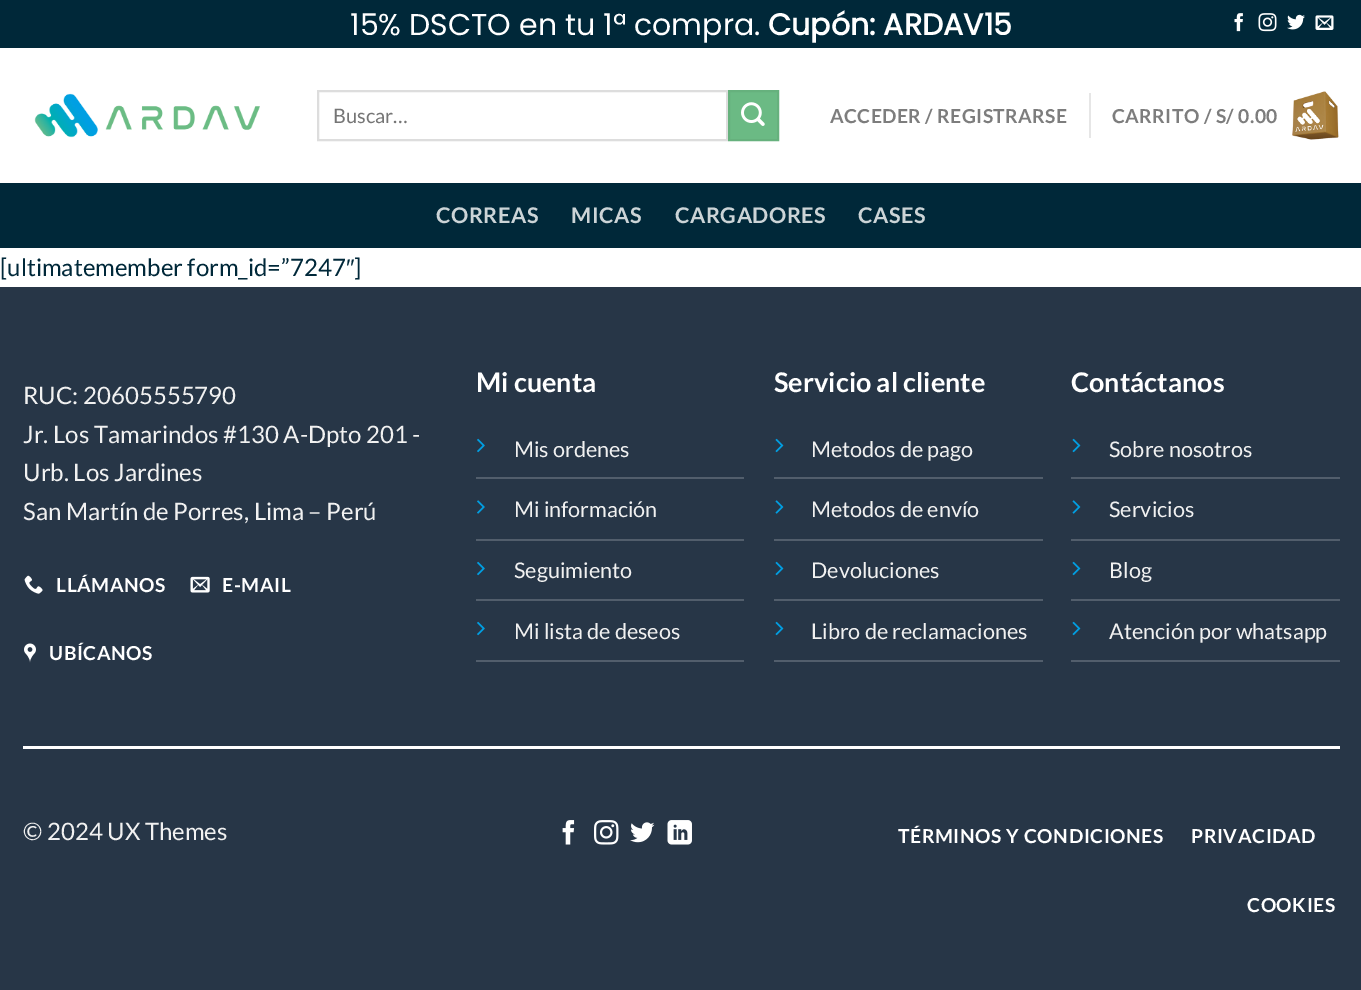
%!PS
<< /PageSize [1361 990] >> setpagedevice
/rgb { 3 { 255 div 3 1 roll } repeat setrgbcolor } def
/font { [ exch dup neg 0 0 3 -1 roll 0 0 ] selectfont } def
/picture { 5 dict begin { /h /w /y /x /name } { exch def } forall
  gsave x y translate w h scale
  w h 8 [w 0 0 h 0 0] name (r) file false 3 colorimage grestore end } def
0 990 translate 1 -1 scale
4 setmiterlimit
255 255 255 rgb
0 0 1361 990 rectfill
0 40 57 rgb
0 0 1361 48 rectfill
(img/1.rgb) 1234 13 9 19 picture
(img/2.rgb) 1258 13 19 19 picture
(img/3.rgb) 1287 14 18 16 picture
(img/4.rgb) 1315 15 19 15 picture
(img/5.rgb) 34 93 226 45 picture
221 221 221 rgb
2 setlinewidth
318 91 409 49 rectstroke
107 186 132 rgb
729 91 moveto 778 91 lineto 778 140 lineto 729 140 lineto closepath gsave fill grestore
102 177 125 rgb
stroke
(img/6.rgb) 741 102 24 24 picture
230 230 230 rgb
1089 93 2 45 rectfill
(img/7.rgb) 1292 91 47 49 picture
0 40 57 rgb
0 183 1361 65 rectfill
39 54 71 rgb
0 287 1361 703 rectfill
(img/8.rgb) 24 575 19 19 picture
(img/9.rgb) 190 576 20 17 picture
(img/10.rgb) 24 643 12 20 picture
82 94 108 rgb
476 477 268 2 rectfill
(img/11.rgb) 477 438 8 15 picture
476 539 268 2 rectfill
(img/12.rgb) 477 500 8 14 picture
476 599 268 2 rectfill
(img/11.rgb) 477 561 8 15 picture
476 660 268 2 rectfill
(img/11.rgb) 477 621 8 15 picture
774 477 269 2 rectfill
(img/13.rgb) 775 438 9 15 picture
774 539 269 2 rectfill
(img/14.rgb) 775 500 9 14 picture
774 599 269 2 rectfill
(img/13.rgb) 775 561 9 15 picture
774 660 269 2 rectfill
(img/13.rgb) 775 621 9 15 picture
1071 477 269 2 rectfill
(img/13.rgb) 1072 438 9 15 picture
1071 539 269 2 rectfill
(img/14.rgb) 1072 500 9 14 picture
1071 599 269 2 rectfill
(img/13.rgb) 1072 561 9 15 picture
1071 660 269 2 rectfill
(img/13.rgb) 1072 621 9 15 picture
255 255 255 rgb
23 746 1317 3 rectfill
(img/15.rgb) 562 820 13 25 picture
(img/16.rgb) 594 820 25 25 picture
(img/17.rgb) 630 822 25 21 picture
(img/18.rgb) 667 820 25 25 picture
/Poppins-Regular 30 font
350 35 moveto (15% DSCTO en tu 1ª compra.) show
/Poppins-Bold 30 font
768 35 moveto (Cupón: ARDAV15) show
/Lato-Regular 20 font
117 117 117 rgb
333 123 moveto (Buscar…) show
/Lato-Bold 19.25 font
125 125 125 rgb
830 123 moveto 0.4 0 (ACCEDER / REGISTRARSE) ashow
1112 123 moveto 0.4 0 (CARRITO / S/ 0.00) ashow
/Lato-Bold 21.6 font
204 212 215 rgb
436 223 moveto 0.5 0 (CORREAS) ashow
571 223 moveto 0.5 0 (MICAS) ashow
675 223 moveto 0.5 0 (CARGADORES) ashow
858 223 moveto 0.5 0 (CASES) ashow
/Lato-Regular 24 font
0 40 57 rgb
0 276 moveto ([ultimatemember form_id=”7247) show
/LiberationSans-Regular 24 font
346 276 moveto (″) show
/Lato-Regular 24 font
354 276 moveto (]) show
241 241 241 rgb
[
  [(RUC: 20605555790) 23 404]
  [(Jr. Los Tamarindos #130 A-Dpto 201 -) 23 443]
  [(Urb. Los Jardines) 23 481]
  [(San Martín de Porres, Lima – Perú) 23 520]
] { aload pop moveto show } forall
/Lato-Bold 19.25 font
255 255 255 rgb
56 592 moveto 0.6 0 (LLÁMANOS) ashow
222 592 moveto 0.6 0 (E-MAIL) ashow
49 660 moveto 0.6 0 (UBÍCANOS) ashow
/Lato-Bold 27 font
476 392 moveto (Mi cuenta) show
/Lato-Regular 21.6 font
241 241 241 rgb
[
  [(Mis ordenes) 514 457]
  [(Mi información) 514 517]
  [(Seguimiento) 514 578]
  [(Mi lista de deseos) 514 639]
] { aload pop moveto show } forall
/Lato-Bold 27 font
255 255 255 rgb
774 392 moveto (Servicio al cliente) show
/Lato-Regular 21.6 font
241 241 241 rgb
[
  [(Metodos de pago) 811 457]
  [(Metodos de envío) 811 517]
  [(Devoluciones) 811 578]
  [(Libro de reclamaciones) 811 639]
] { aload pop moveto show } forall
/Lato-Bold 27 font
255 255 255 rgb
1071 392 moveto (Contáctanos) show
/Lato-Regular 21.6 font
241 241 241 rgb
[
  [(Sobre nosotros) 1109 457]
  [(Servicios) 1109 517]
  [(Blog) 1109 578]
  [(Atención por whatsapp) 1109 639]
] { aload pop moveto show } forall
/Lato-Regular 24 font
23 840 moveto (© 2024 UX Themes) show
/Lato-Bold 19.25 font
255 255 255 rgb
898 843 moveto 0.6 0 (TÉRMINOS Y CONDICIONES) ashow
1191 843 moveto 0.6 0 (PRIVACIDAD) ashow
1247 912 moveto 0.6 0 (COOKIES) ashow
showpage
